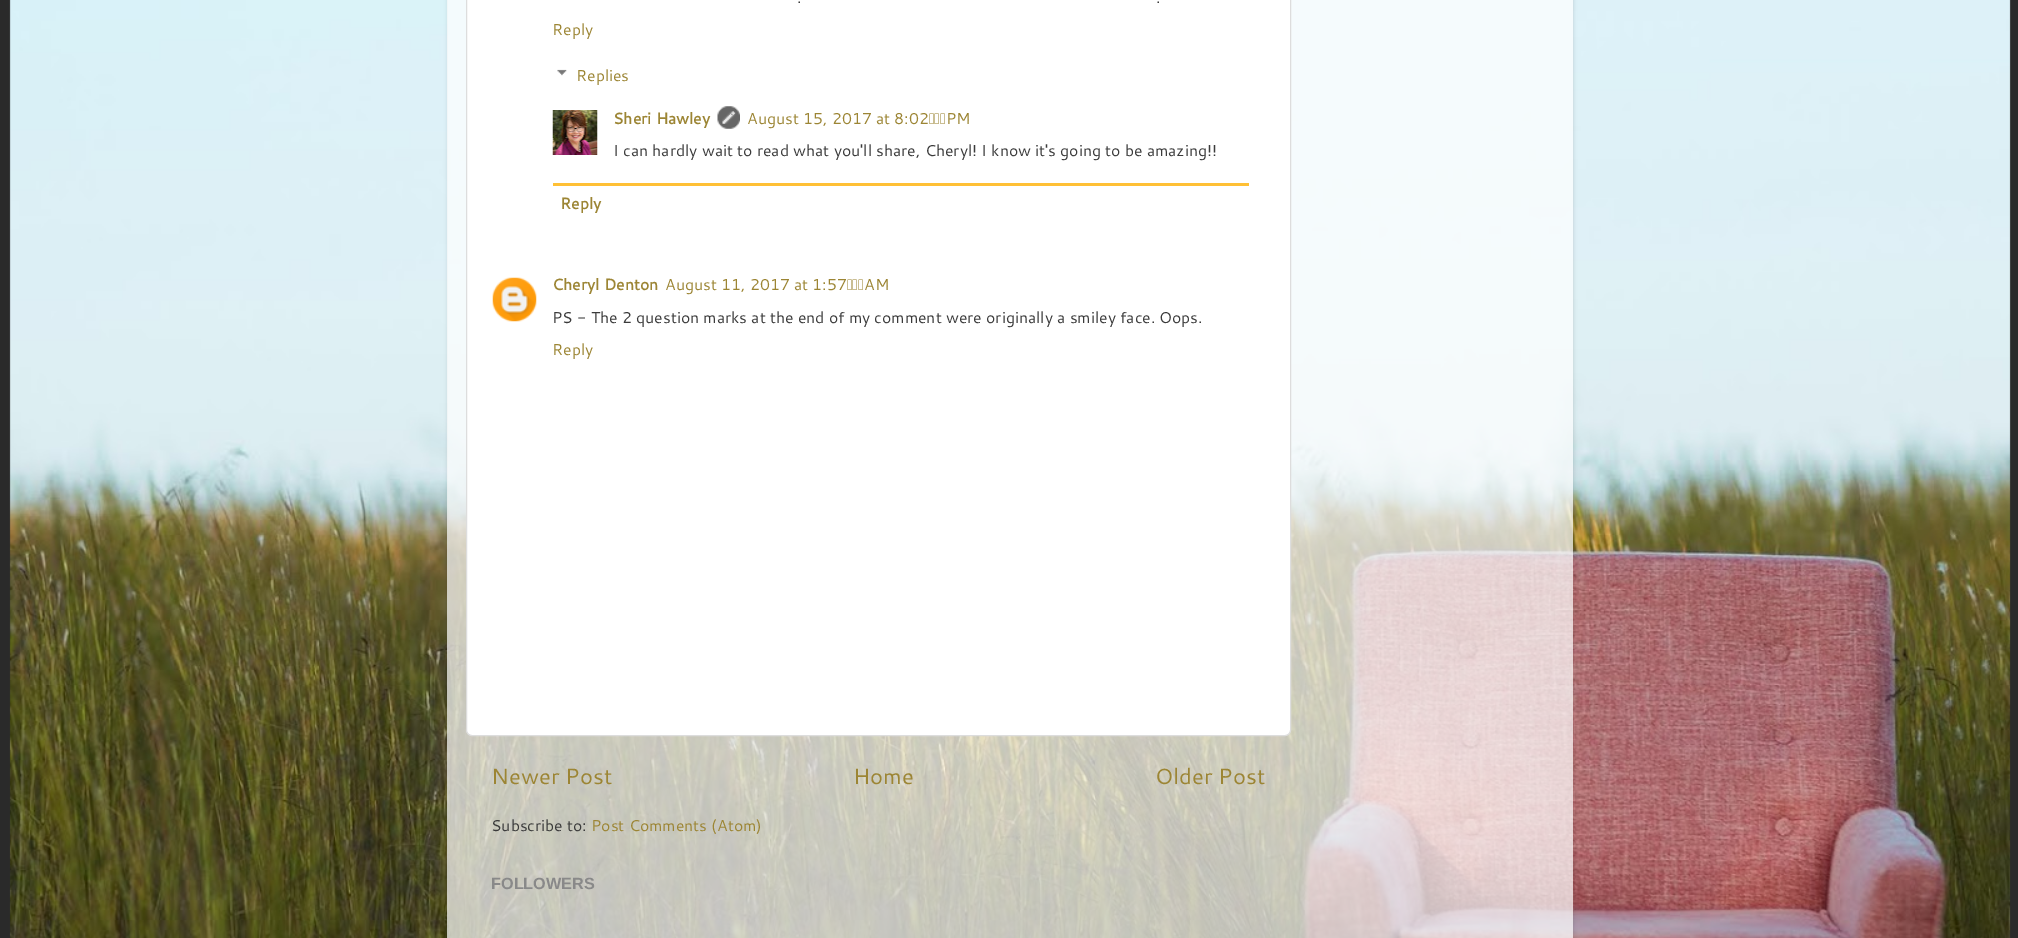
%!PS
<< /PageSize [2018 938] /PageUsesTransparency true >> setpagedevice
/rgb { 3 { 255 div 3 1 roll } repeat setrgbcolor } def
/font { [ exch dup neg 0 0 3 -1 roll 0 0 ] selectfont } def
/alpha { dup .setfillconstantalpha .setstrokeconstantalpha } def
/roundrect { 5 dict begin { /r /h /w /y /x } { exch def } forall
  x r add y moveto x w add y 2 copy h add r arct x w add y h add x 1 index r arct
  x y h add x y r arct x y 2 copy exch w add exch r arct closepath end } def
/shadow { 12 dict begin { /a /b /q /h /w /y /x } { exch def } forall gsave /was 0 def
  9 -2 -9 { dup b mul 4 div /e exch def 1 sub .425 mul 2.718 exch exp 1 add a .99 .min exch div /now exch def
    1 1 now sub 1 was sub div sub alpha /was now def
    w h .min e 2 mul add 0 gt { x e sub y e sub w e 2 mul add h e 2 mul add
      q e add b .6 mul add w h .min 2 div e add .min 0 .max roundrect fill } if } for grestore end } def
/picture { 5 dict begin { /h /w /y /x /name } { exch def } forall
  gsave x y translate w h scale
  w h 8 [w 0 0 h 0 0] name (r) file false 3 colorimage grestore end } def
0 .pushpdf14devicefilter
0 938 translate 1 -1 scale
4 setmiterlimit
42 42 42 rgb
0 0 2018 938 rectfill
(img/1.rgb) 9 0 2002 938 picture
gsave
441 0 moveto 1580 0 lineto 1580 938 lineto 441 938 lineto closepath 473 -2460 moveto 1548 -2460 lineto 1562 -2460 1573 -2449 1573 -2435 curveto 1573 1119 lineto 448 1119 lineto 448 -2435 lineto 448 -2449 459 -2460 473 -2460 curveto closepath eoclip newpath
0 0 0 rgb
448 -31 1125 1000 25 2 0.15 shadow
grestore
0.7 alpha
255 255 255 rgb
447 0 1126 938 rectfill
1 alpha
466.5 -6.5 824 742 5.5 roundrect gsave fill grestore
221 221 221 rgb
stroke
(img/2.rgb) 557 69 10 7 picture
(img/3.rgb) 552 110 46 45 picture
(img/4.rgb) 717 106 23 23 picture
255 192 53 rgb
553 183 696 3 rectfill
(img/5.rgb) 492 277 45 45 picture
/Cantarell-Regular 15.75 font
59 59 59 rgb
797 3 moveto (.) show
1156 3 moveto (.) show
156 133 52 rgb
552 35 moveto (Reply) show
576 81 moveto (Replies) show
/Cantarell-Bold 15.75 font
613 124 moveto (Sheri Hawley) show
/Cantarell-Regular 15.75 font
747 124 moveto (August 15, 2017 at 8:02 PM) show
59 59 59 rgb
613 156 moveto (I can hardly wait to read what you'll share, Cheryl! I know it's going to be amazing!!) show
/Cantarell-Bold 15.75 font
156 133 52 rgb
560 209 moveto (Reply) show
552 290 moveto (Cheryl Denton) show
/Cantarell-Regular 15.75 font
665 290 moveto (August 11, 2017 at 1:57 AM) show
59 59 59 rgb
552 323 moveto (PS - The 2 question marks at the end of my comment were originally a smiley face.) show
1159 323 moveto (Oops.) show
156 133 52 rgb
552 355 moveto (Reply) show
/Cantarell-Regular 22 font
[
  [(Newer Post) 491 784]
  [(Home) 853 784]
  [(Older Post) 1155 784]
] { aload pop moveto show } forall
/Cantarell-Regular 15.75 font
59 59 59 rgb
491 831 moveto (Subscribe to:) show
156 133 52 rgb
591 831 moveto (Post Comments \(Atom\)) show
/LiberationSans-Bold 16.25 font
137 137 137 rgb
491 889 moveto (FOLLOWERS) show
.poppdf14devicefilter showpage
